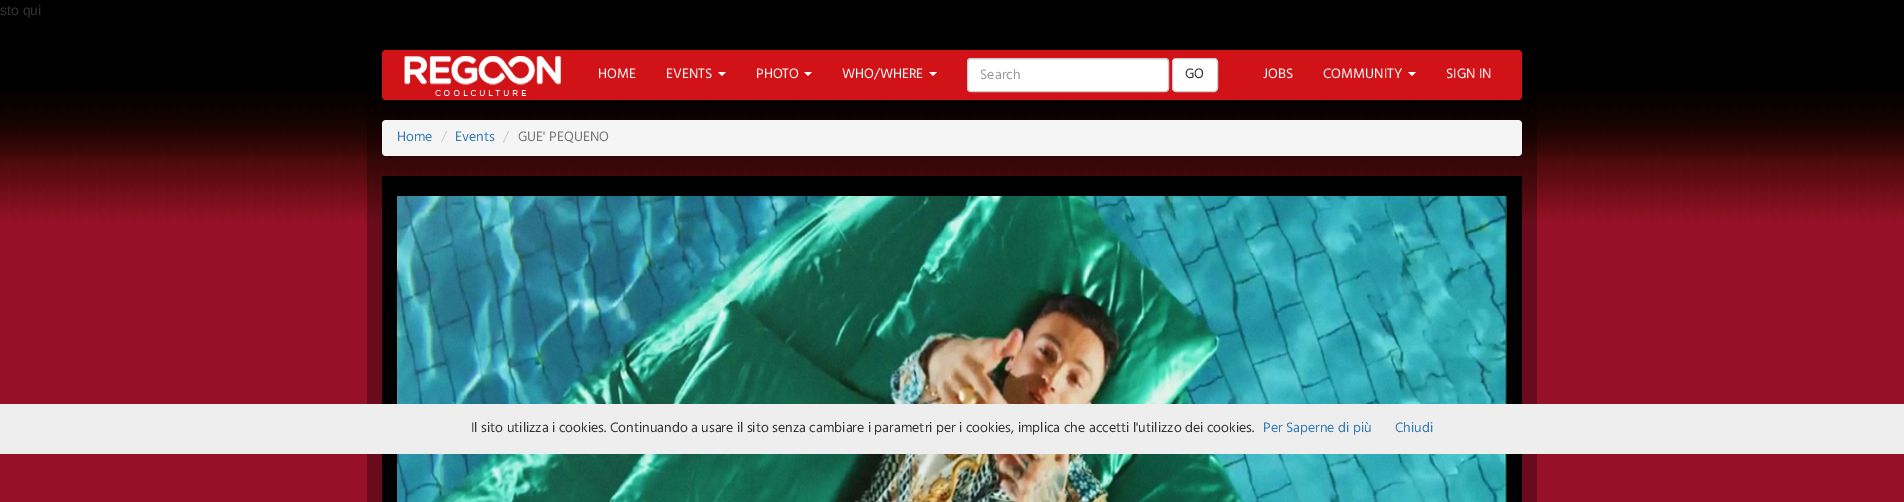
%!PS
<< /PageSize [1904 502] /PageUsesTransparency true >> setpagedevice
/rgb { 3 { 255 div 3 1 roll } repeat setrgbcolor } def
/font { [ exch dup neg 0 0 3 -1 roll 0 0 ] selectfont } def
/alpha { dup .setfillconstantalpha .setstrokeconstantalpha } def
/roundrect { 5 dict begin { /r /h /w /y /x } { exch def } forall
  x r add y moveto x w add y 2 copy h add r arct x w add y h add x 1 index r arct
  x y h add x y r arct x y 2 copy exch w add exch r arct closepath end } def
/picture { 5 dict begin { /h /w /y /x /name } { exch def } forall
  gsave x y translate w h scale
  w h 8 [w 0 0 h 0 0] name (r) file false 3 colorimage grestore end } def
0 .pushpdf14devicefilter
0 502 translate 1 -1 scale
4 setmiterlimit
150 16 40 rgb
0 0 1904 502 rectfill
(img/1.rgb) 0 0 1904 221 picture
0.3 alpha
0 0 0 rgb
367 95 1170 407 rectfill
1 alpha
209 18 22 rgb
382 50 1140 50 4 roundrect fill
(img/2.rgb) 404 56 157 40 picture
255 255 255 rgb
718 72 moveto 726 72 lineto 722 76 lineto closepath fill
804 72 moveto 812 72 lineto 808 76 lineto closepath fill
929 72 moveto 937 72 lineto 933 76 lineto closepath fill
967 58 202 34 4 roundrect fill
236 236 236 rgb
971 60 moveto 1165 60 lineto 1167 60 1168 61 1168 63 curveto 1168 61 1167 59 1165 59 curveto 971 59 lineto 969 59 968 61 968 63 curveto 968 61 969 60 971 60 curveto closepath fill
204 204 204 rgb
967.5 58.5 201 33 3.5 roundrect stroke
255 255 255 rgb
1172.5 58.5 45 33 3.5 roundrect gsave fill grestore
204 204 204 rgb
stroke
255 255 255 rgb
1408 72 moveto 1416 72 lineto 1412 76 lineto closepath fill
245 245 245 rgb
382 120 1140 36 4 roundrect fill
0 0 0 rgb
382 176 1140 326 rectfill
(img/3.rgb) 397 196 1110 306 picture
238 238 238 rgb
0 404 1904 50 rectfill
/LiberationSans-Regular 14 font
51 51 51 rgb
0 15 moveto (sto qui) show
/Hind-Regular 14 font
255 255 255 rgb
[
  [(HOME) 598 78]
  [(EVENTS) 666 78]
  [(PHOTO) 756 78]
  [(WHO/WHERE) 842 78]
] { aload pop moveto show } forall
153 153 153 rgb
980 79 moveto (Search) show
51 51 51 rgb
1185 78 moveto (GO) show
255 255 255 rgb
[
  [(JOBS) 1263 78]
  [(COMMUNITY) 1323 78]
  [(SIGN IN) 1446 78]
] { aload pop moveto show } forall
51 122 183 rgb
397 141 moveto (Home) show
204 204 204 rgb
441 141 moveto (/) show
51 122 183 rgb
455 141 moveto (Events) show
204 204 204 rgb
503 141 moveto (/) show
119 119 119 rgb
518 141 moveto (GUE' PEQUENO) show
51 51 51 rgb
471 432 moveto (Il sito utilizza i cookies. Continuando a usare il sito senza cambiare i parametri per i cookies, implica che accetti l'utilizzo dei cookies.) show
51 122 183 rgb
1263 432 moveto (Per Saperne di più) show
1395 432 moveto (Chiudi) show
.poppdf14devicefilter showpage
